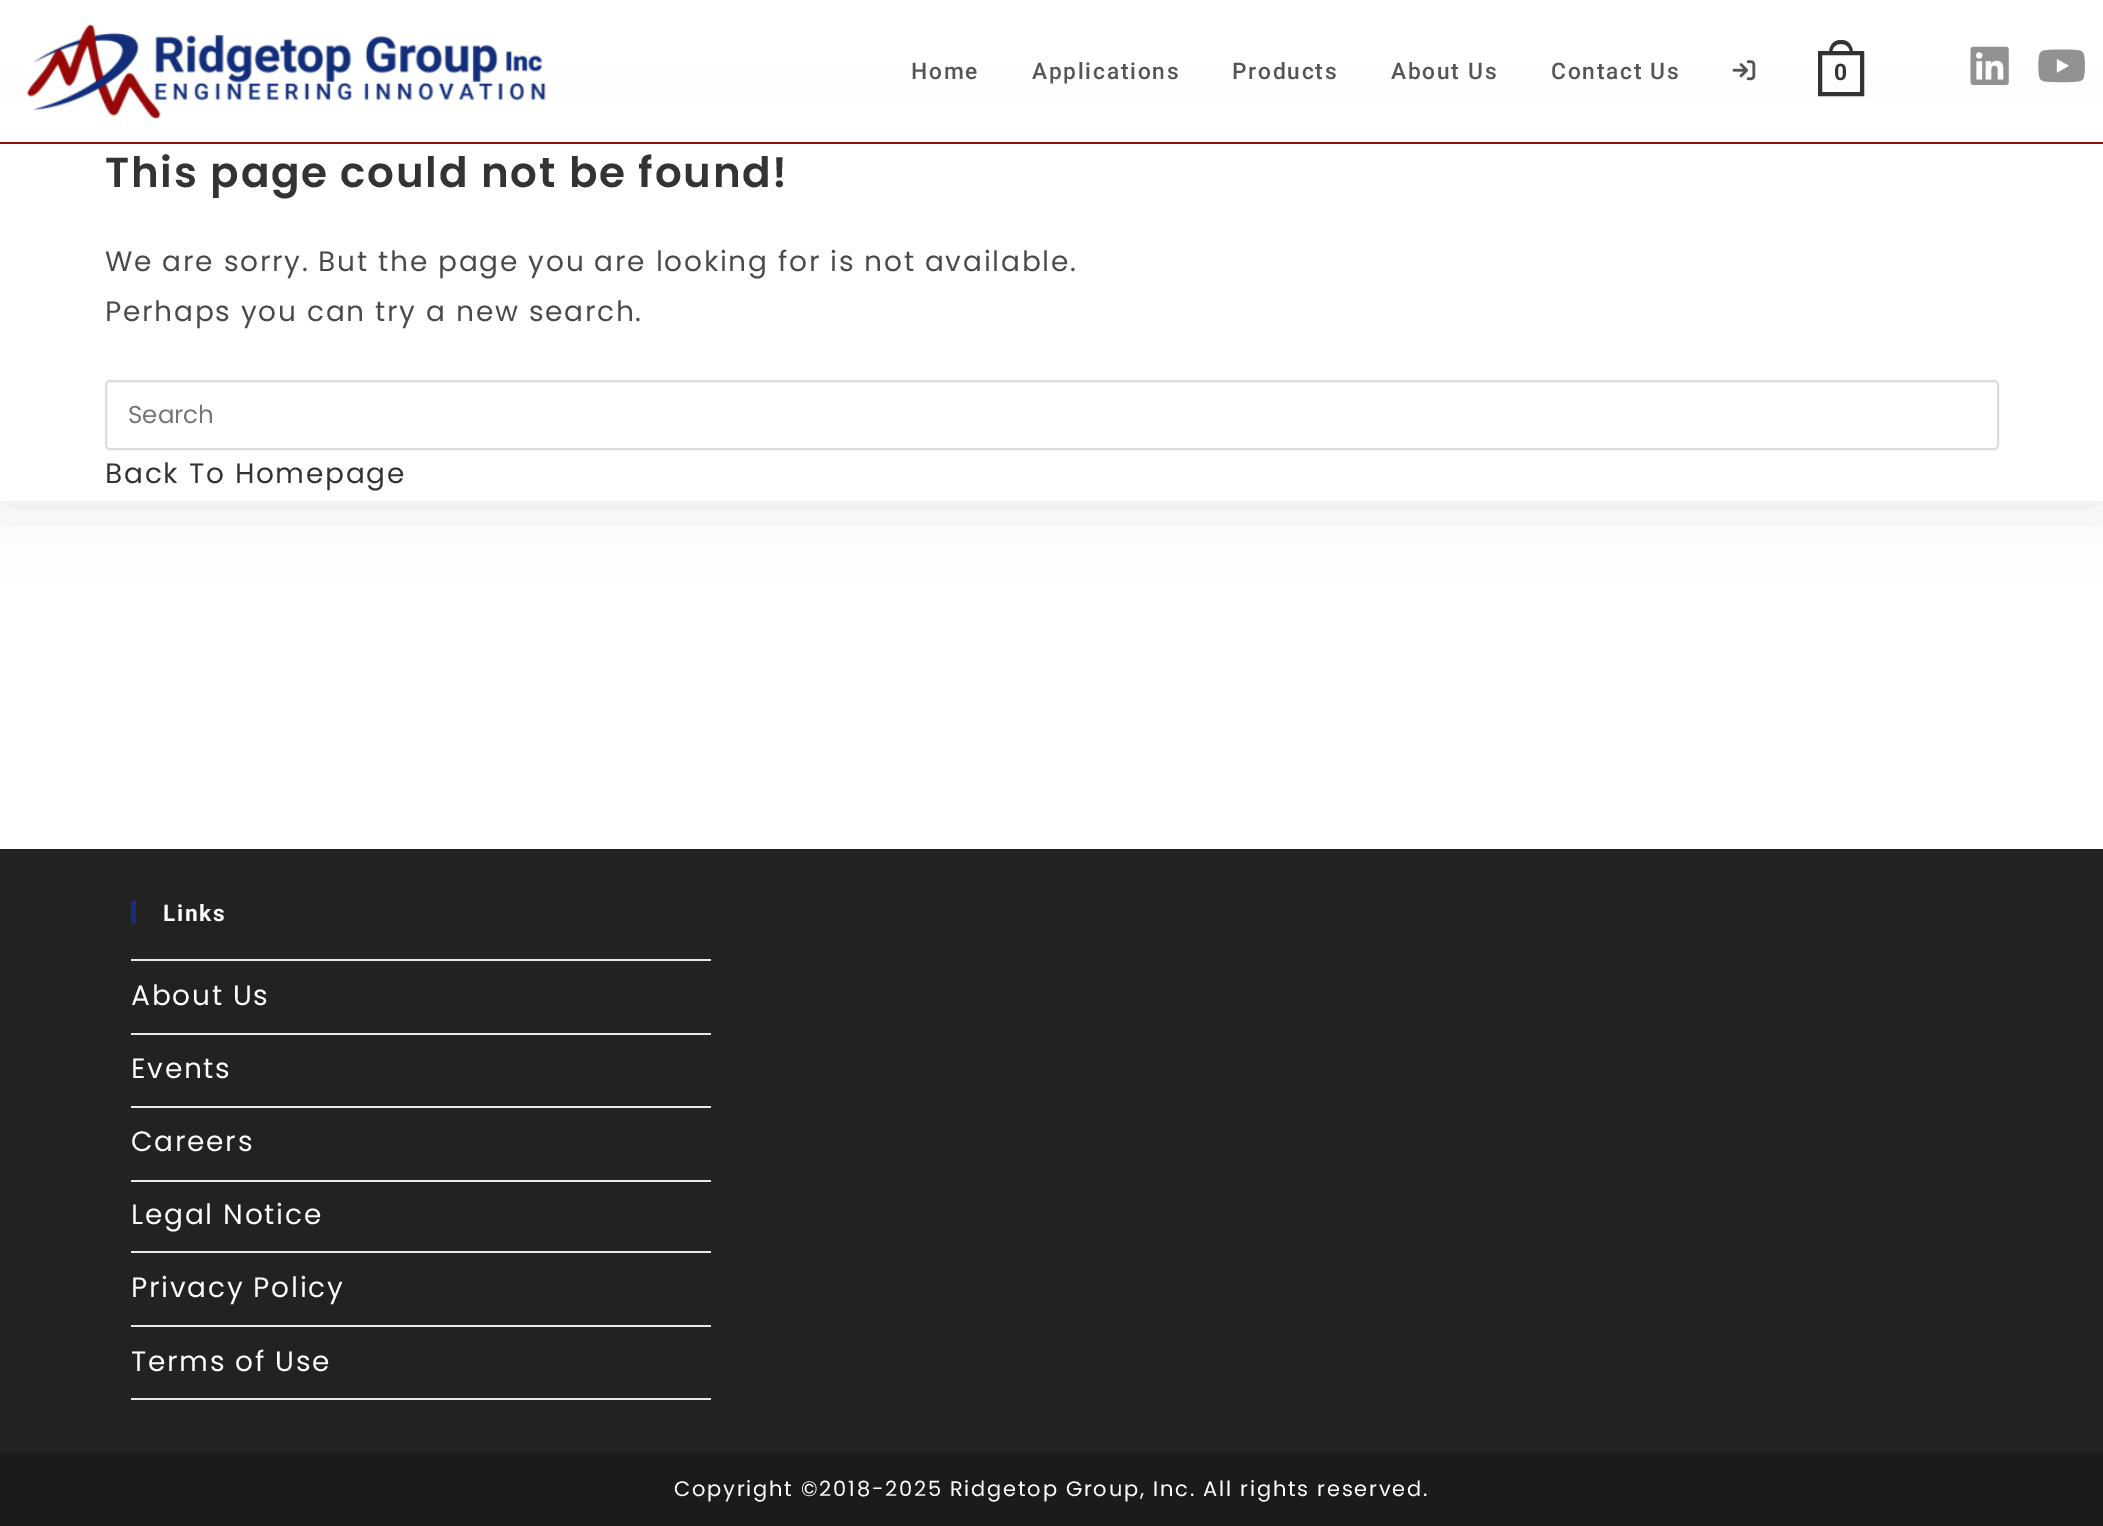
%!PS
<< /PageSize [2103 1526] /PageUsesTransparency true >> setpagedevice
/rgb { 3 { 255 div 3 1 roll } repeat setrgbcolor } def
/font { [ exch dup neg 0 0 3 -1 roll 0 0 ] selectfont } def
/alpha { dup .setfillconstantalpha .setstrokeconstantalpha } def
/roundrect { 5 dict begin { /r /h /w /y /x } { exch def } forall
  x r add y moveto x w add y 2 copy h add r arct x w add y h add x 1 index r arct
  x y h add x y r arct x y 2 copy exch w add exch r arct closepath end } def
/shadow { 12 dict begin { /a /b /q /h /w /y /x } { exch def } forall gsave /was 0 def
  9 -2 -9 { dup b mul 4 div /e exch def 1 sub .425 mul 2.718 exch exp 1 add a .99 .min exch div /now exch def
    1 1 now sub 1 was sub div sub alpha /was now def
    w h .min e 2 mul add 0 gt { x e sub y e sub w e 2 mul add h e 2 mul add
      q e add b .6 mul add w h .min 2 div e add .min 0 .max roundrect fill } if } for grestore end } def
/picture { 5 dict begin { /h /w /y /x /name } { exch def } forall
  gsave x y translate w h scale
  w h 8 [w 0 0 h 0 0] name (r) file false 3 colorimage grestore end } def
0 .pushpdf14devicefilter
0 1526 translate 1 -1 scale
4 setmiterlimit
255 255 255 rgb
0 0 2103 1526 rectfill
0 0 0 rgb
0 144 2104 357 0 35 0.1 shadow
255 255 255 rgb
0 99 2103 43 rectfill
150 13 13 rgb
0 142 2103 2 rectfill
(img/1.rgb) 26 24 520 95 picture
(img/2.rgb) 1732 60 24 21 picture
51 51 51 rgb
4 setlinewidth
1820 53 42 41 rectstroke
1841 40 moveto 1849.5 40 1853 46.5 1853 54 curveto 1829 54 lineto 1829 46.5 1832.5 40 1841 40 curveto closepath 1841 44 moveto 1847.5 44 1850 48.5 1850 54 curveto 1832 54 lineto 1832 48.5 1834.5 44 1841 44 curveto closepath eofill
(img/3.rgb) 1970 46 39 39 picture
(img/4.rgb) 2038 49 47 34 picture
255 255 255 rgb
0 144 2103 357 rectfill
221 221 221 rgb
2 setlinewidth
106 381 1892 68 4 roundrect stroke
[
  [0 849 2103 604 34 34 34]
  [131 901 5 23 21 45 124]
  [131 959 580 2 233 233 233]
  [131 1033 580 2 233 233 233]
  [131 1106 580 2 233 233 233]
  [131 1180 580 2 233 233 233]
  [131 1251 580 2 233 233 233]
  [131 1325 580 2 233 233 233]
  [131 1398 580 2 233 233 233]
  [0 1453 2103 73 27 27 27]
] { aload pop rgb rectfill } forall
/Roboto-Medium 22.75 font
85 85 85 rgb
911 79 moveto 1.75 0 (Home) ashow
1032 79 moveto 1.75 0 (Applications) ashow
1232 79 moveto 1.75 0 (Products) ashow
1391 79 moveto 1.75 0 (About Us) ashow
1551 79 moveto 1.75 0 (Contact Us) ashow
/Roboto-Bold 22.75 font
51 51 51 rgb
1834 80 moveto (0) show
/Poppins-SemiBold 42 font
105 187 moveto 1.75 0 (This page could not be found!) ashow
/Poppins-Regular 28 font
74 74 74 rgb
105 271 moveto 1.75 0 (We are sorry. But the page you are looking for is not available.) ashow
105 321 moveto 1.75 0 (Perhaps you can try a new search.) ashow
/Poppins-Regular 24.5 font
117 117 117 rgb
128 423 moveto (Search) show
/Poppins-Regular 28 font
51 51 51 rgb
105 483 moveto 1.75 0 (Back To Homepage) ashow
/Roboto-Bold 22.75 font
255 255 255 rgb
163 921 moveto 1.75 0 (Links) ashow
/Poppins-Regular 28 font
131 1005 moveto 1.75 0 (About Us) ashow
131 1078 moveto 1.75 0 (Events) ashow
131 1151 moveto 1.75 0 (Careers) ashow
131 1224 moveto 1.75 0 (Legal Notice) ashow
131 1297 moveto 1.75 0 (Privacy Policy) ashow
131 1371 moveto 1.75 0 (Terms of Use) ashow
/Poppins-Regular 21 font
674 1496 moveto 1.75 0 (Copyright ©2018-2025 Ridgetop Group, Inc. All rights reserved.) ashow
.poppdf14devicefilter showpage
